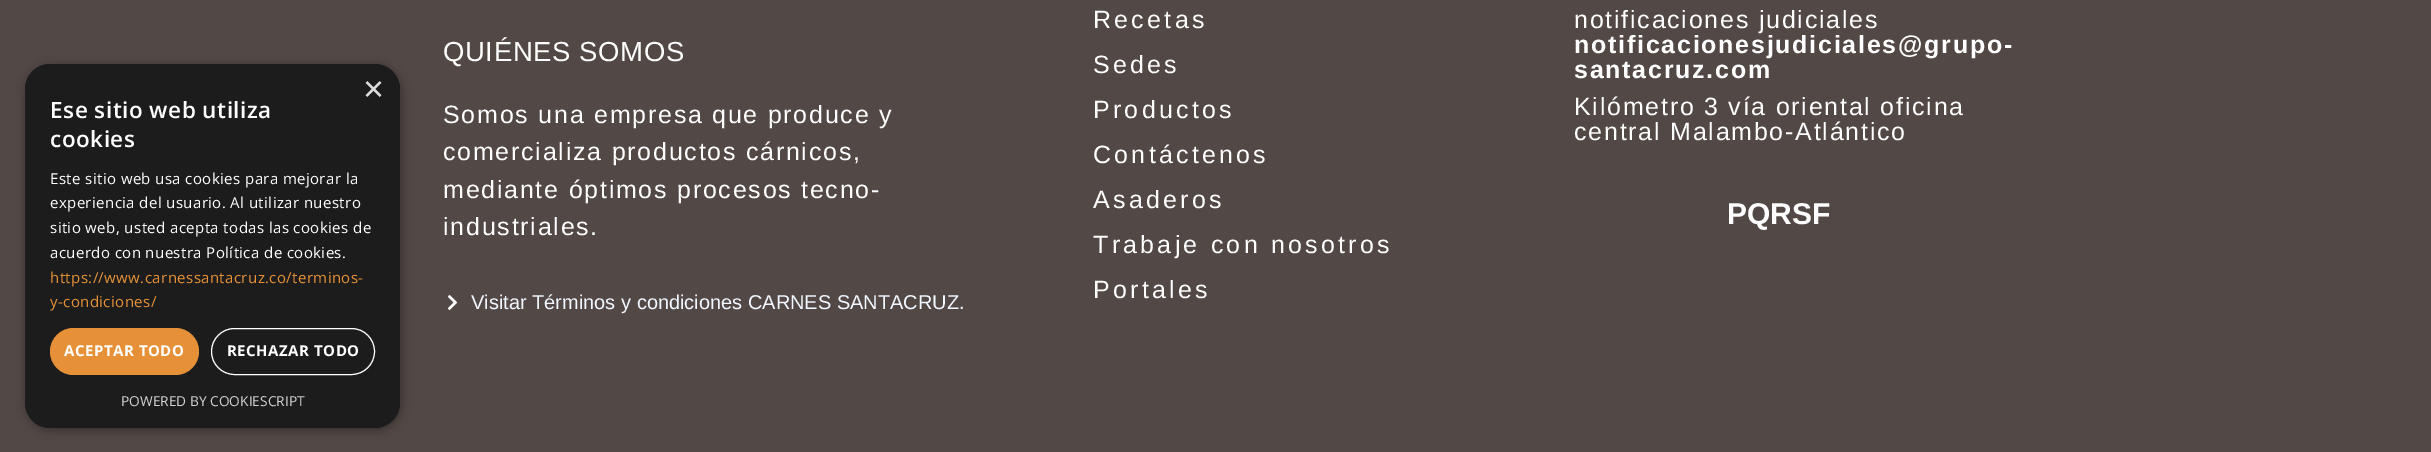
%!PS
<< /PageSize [2431 452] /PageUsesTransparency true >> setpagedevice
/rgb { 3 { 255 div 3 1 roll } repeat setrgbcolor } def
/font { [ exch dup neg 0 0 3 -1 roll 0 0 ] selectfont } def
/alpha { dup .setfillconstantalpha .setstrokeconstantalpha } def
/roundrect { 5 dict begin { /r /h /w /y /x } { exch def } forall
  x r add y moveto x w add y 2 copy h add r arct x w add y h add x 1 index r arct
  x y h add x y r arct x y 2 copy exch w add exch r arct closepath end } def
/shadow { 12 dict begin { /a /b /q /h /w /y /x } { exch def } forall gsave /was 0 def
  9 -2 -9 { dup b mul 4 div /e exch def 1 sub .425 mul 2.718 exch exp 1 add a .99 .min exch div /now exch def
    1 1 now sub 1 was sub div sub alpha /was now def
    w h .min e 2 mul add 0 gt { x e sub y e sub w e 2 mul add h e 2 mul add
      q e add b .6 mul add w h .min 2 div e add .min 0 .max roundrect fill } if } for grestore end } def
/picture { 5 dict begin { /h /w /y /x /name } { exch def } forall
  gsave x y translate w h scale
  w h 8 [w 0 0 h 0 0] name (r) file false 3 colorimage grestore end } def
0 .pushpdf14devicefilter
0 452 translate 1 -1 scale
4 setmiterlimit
82 72 70 rgb
0 0 2431 452 rectfill
0 0 0 rgb
26 66 375 364 25 5 0.35 shadow
28 28 28 rgb
25 64 375 364 25 roundrect fill
230 145 56 rgb
50 328 149 47 23.5 roundrect fill
255 255 255 rgb
211.5 328.5 163 46 23 roundrect stroke
(img/1.rgb) 448 295 9 15 picture
/LiberationSans-Regular 36 font
221 221 221 rgb
363 101 moveto (×) show
/OpenSans-SemiBold 22.5 font
255 255 255 rgb
50 118 moveto 0.5 0 (Ese sitio web utiliza) ashow
50 147 moveto 0.5 0 (cookies) ashow
/OpenSans-Regular 15 font
50 184 moveto 0.4 0 (Este sitio web usa cookies para mejorar la) ashow
50 208 moveto 0.4 0 (experiencia del usuario. Al utilizar nuestro) ashow
50 233 moveto 0.4 0 (sitio web, usted acepta todas las cookies de) ashow
50 258 moveto 0.4 0 (acuerdo con nuestra Política de cookies.) ashow
230 145 56 rgb
50 283 moveto 0.4 0 (https://www.carnessantacruz.co/terminos-) ashow
50 307 moveto 0.4 0 (y-condiciones/) ashow
/OpenSans-Bold 15 font
255 255 255 rgb
64 356 moveto 0.5 0 (ACEPTAR TODO) ashow
227 356 moveto 0.5 0 (RECHAZAR TODO) ashow
/OpenSans-Regular 13.75 font
210 210 210 rgb
121 406 moveto (POWERED BY COOKIESCRIPT) show
/LiberationSans-Regular 27.5 font
255 255 255 rgb
443 61 moveto 0.6 0 (QUIÉNES SOMOS) ashow
/LiberationSans-Regular 25 font
443 123 moveto 1.75 0 (Somos una empresa que produce y) ashow
443 160 moveto 1.75 0 (comercializa productos cárnicos,) ashow
443 198 moveto 1.75 0 (mediante óptimos procesos tecno-) ashow
443 235 moveto 1.75 0 (industriales.) ashow
/LiberationSans-Regular 20 font
242 248 255 rgb
471 309 moveto (Visitar Términos y condiciones CARNES SANTACRUZ.) show
/LiberationSans-Regular 25 font
255 255 255 rgb
1093 28 moveto 3.25 0 (Recetas) ashow
1093 73 moveto 3.25 0 (Sedes) ashow
1093 118 moveto 3.25 0 (Productos) ashow
1093 163 moveto 3.25 0 (Contáctenos) ashow
1093 208 moveto 3.25 0 (Asaderos) ashow
1093 253 moveto 3.25 0 (Trabaje con nosotros) ashow
1093 298 moveto 3.25 0 (Portales) ashow
1574 28 moveto 1.75 0 (notificaciones judiciales) ashow
/LiberationSans-Bold 25 font
1574 53 moveto 1.75 0 (notificacionesjudiciales@grupo-) ashow
1574 78 moveto 1.75 0 (santacruz.com) ashow
/LiberationSans-Regular 25 font
1574 115 moveto 1.75 0 (Kilómetro 3 vía oriental oficina) ashow
1574 140 moveto 1.75 0 (central Malambo-Atlántico) ashow
/LiberationSans-Bold 30 font
1727 224 moveto (PQRSF) show
.poppdf14devicefilter showpage
